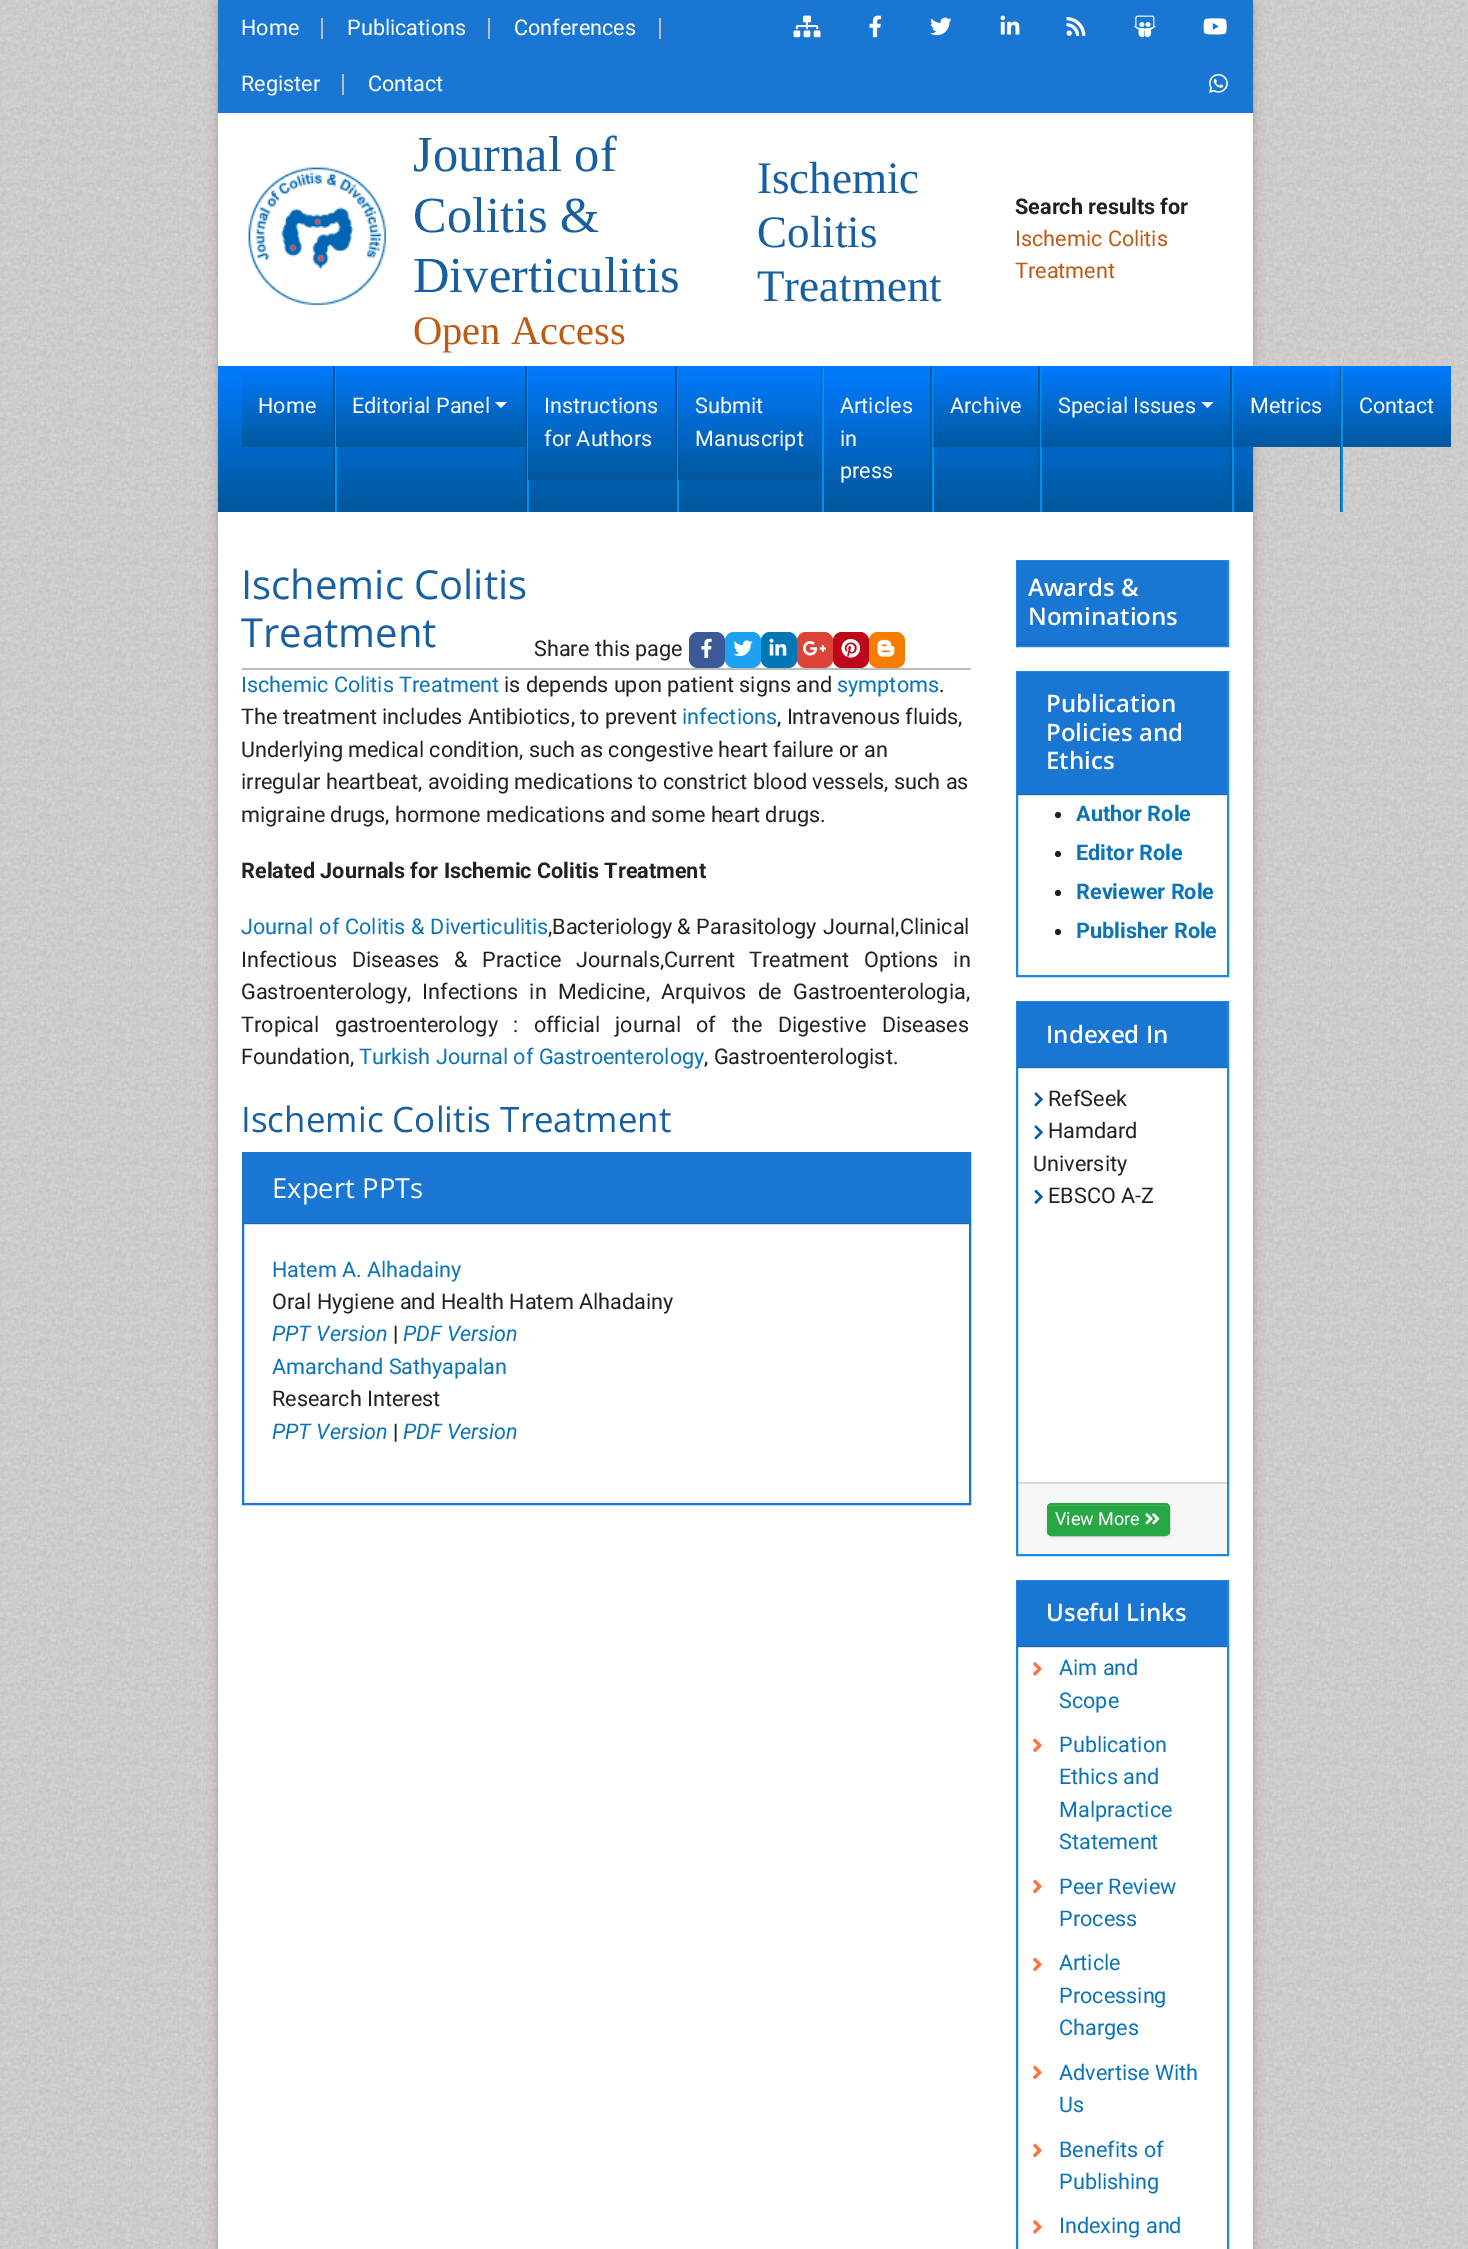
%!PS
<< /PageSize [1468 2249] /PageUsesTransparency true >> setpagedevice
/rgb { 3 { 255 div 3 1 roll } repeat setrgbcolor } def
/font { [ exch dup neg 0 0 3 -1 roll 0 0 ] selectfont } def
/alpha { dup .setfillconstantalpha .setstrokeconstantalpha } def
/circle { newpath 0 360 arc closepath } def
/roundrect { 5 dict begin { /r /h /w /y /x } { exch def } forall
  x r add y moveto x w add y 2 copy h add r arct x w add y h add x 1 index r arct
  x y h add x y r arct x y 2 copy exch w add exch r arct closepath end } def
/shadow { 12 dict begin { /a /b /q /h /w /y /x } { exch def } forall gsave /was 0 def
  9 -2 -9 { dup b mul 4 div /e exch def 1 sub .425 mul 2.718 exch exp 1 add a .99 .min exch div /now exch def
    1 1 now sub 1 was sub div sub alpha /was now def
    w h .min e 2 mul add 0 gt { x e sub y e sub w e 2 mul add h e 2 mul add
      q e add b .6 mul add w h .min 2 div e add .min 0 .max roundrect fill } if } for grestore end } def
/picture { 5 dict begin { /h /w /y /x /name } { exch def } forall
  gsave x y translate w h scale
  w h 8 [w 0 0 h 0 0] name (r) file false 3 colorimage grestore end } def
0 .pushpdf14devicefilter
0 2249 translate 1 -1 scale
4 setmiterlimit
255 255 255 rgb
0 0 1468 2249 rectfill
(img/1.rgb) 0 0 1468 2249 picture
0 0 0 rgb
218 2 1035 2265 0 6 0.12 shadow
218 5 1035 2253 0 3 0.14 shadow
[
  [218 113 1035 2136 255 255 255]
  [218 0 1035 113 25 118 210]
  [321 18 2 21 189 189 189]
  [488 18 2 21 189 189 189]
  [659 18 2 21 189 189 189]
  [342 74 2 21 189 189 189]
] { aload pop rgb rectfill } forall
(img/2.rgb) 793 15 28 23 picture
(img/3.rgb) 869 15 13 23 picture
(img/4.rgb) 930 17 22 19 picture
(img/5.rgb) 1000 15 20 20 picture
(img/6.rgb) 1066 17 20 19 picture
(img/7.rgb) 1134 15 22 23 picture
(img/8.rgb) 1203 18 24 17 picture
(img/9.rgb) 1209 73 19 20 picture
(img/10.rgb) 248 167 139 138 picture
gsave 218 366 moveto 1253 366 lineto 1253 512 lineto 218 512 lineto closepath clip newpath
<< /ShadingType 2 /ColorSpace /DeviceRGB /Coords [735 366 735 512] /Extend [true true] /Function << /FunctionType 2 /Domain [0 1] /C0 [0 0.482 1] /C1 [0.004 0.341 0.608] /N 1 >> >> shfill grestore
1 87 155 rgb
333 366 2 146 rectfill
gsave 242 371 moveto 333 371 lineto 333 447 lineto 242 447 lineto closepath clip newpath
<< /ShadingType 2 /ColorSpace /DeviceRGB /Coords [287 366 287 528] /Extend [true true] /Function << /FunctionType 3 /Domain [0 1] /Functions [<< /FunctionType 2 /Domain [0 1] /C0 [0 0.482 1] /C1 [0.004 0.341 0.608] /N 1 >> << /FunctionType 2 /Domain [0 1] /C0 [0.004 0.341 0.608] /C1 [0 0.482 1] /N 1 >>] /Bounds [0.51] /Encode [0 1 0 1] >> >> shfill grestore
525 366 2 146 rectfill
0 145 234 rgb
335 366 2 146 rectfill
gsave 336 366 moveto 525 366 lineto 525 447 lineto 336 447 lineto closepath clip newpath
<< /ShadingType 2 /ColorSpace /DeviceRGB /Coords [431 366 431 528] /Extend [true true] /Function << /FunctionType 3 /Domain [0 1] /Functions [<< /FunctionType 2 /Domain [0 1] /C0 [0 0.482 1] /C1 [0.004 0.341 0.608] /N 1 >> << /FunctionType 2 /Domain [0 1] /C0 [0.004 0.341 0.608] /C1 [0 0.482 1] /N 1 >>] /Bounds [0.51] /Encode [0 1 0 1] >> >> shfill grestore
255 255 255 rgb
495 402 moveto 507 402 lineto 501 408 lineto closepath fill
1 87 155 rgb
675 366 2 146 rectfill
0 145 234 rgb
527 366 2 146 rectfill
gsave 528 366 moveto 675 366 lineto 675 480 lineto 528 480 lineto closepath clip newpath
<< /ShadingType 2 /ColorSpace /DeviceRGB /Coords [602 366 602 594] /Extend [true true] /Function << /FunctionType 3 /Domain [0 1] /Functions [<< /FunctionType 2 /Domain [0 1] /C0 [0 0.482 1] /C1 [0.004 0.341 0.608] /N 1 >> << /FunctionType 2 /Domain [0 1] /C0 [0.004 0.341 0.608] /C1 [0 0.482 1] /N 1 >>] /Bounds [0.51] /Encode [0 1 0 1] >> >> shfill grestore
1 87 155 rgb
821 366 1 146 rectfill
0 145 234 rgb
677 366 2 146 rectfill
gsave 678 366 moveto 821 366 lineto 821 480 lineto 678 480 lineto closepath clip newpath
<< /ShadingType 2 /ColorSpace /DeviceRGB /Coords [749 366 749 594] /Extend [true true] /Function << /FunctionType 3 /Domain [0 1] /Functions [<< /FunctionType 2 /Domain [0 1] /C0 [0 0.482 1] /C1 [0.004 0.341 0.608] /N 1 >> << /FunctionType 2 /Domain [0 1] /C0 [0.004 0.341 0.608] /C1 [0 0.482 1] /N 1 >>] /Bounds [0.51] /Encode [0 1 0 1] >> >> shfill grestore
[
  [930 366 2 146 1 87 155]
  [822 366 2 146 0 145 234]
  [1038 366 2 146 1 87 155]
  [932 366 2 146 0 145 234]
] { aload pop rgb rectfill } forall
gsave 933 366 moveto 1038 366 lineto 1038 447 lineto 933 447 lineto closepath clip newpath
<< /ShadingType 2 /ColorSpace /DeviceRGB /Coords [986 366 986 528] /Extend [true true] /Function << /FunctionType 3 /Domain [0 1] /Functions [<< /FunctionType 2 /Domain [0 1] /C0 [0 0.482 1] /C1 [0.004 0.341 0.608] /N 1 >> << /FunctionType 2 /Domain [0 1] /C0 [0.004 0.341 0.608] /C1 [0 0.482 1] /N 1 >>] /Bounds [0.51] /Encode [0 1 0 1] >> >> shfill grestore
1 87 155 rgb
1230 366 2 146 rectfill
0 145 234 rgb
1040 366 2 146 rectfill
gsave 1041 366 moveto 1230 366 lineto 1230 447 lineto 1041 447 lineto closepath clip newpath
<< /ShadingType 2 /ColorSpace /DeviceRGB /Coords [1136 366 1136 528] /Extend [true true] /Function << /FunctionType 3 /Domain [0 1] /Functions [<< /FunctionType 2 /Domain [0 1] /C0 [0 0.482 1] /C1 [0.004 0.341 0.608] /N 1 >> << /FunctionType 2 /Domain [0 1] /C0 [0.004 0.341 0.608] /C1 [0 0.482 1] /N 1 >>] /Bounds [0.51] /Encode [0 1 0 1] >> >> shfill grestore
255 255 255 rgb
1201.5 402 moveto 1213.5 402 lineto 1207.5 408 lineto closepath fill
1 87 155 rgb
1340 366 1 146 rectfill
0 145 234 rgb
1232 366 2 146 rectfill
gsave 1233 366 moveto 1340 366 lineto 1340 447 lineto 1233 447 lineto closepath clip newpath
<< /ShadingType 2 /ColorSpace /DeviceRGB /Coords [1286 366 1286 528] /Extend [true true] /Function << /FunctionType 3 /Domain [0 1] /Functions [<< /FunctionType 2 /Domain [0 1] /C0 [0 0.482 1] /C1 [0.004 0.341 0.608] /N 1 >> << /FunctionType 2 /Domain [0 1] /C0 [0.004 0.341 0.608] /C1 [0 0.482 1] /N 1 >>] /Bounds [0.51] /Encode [0 1 0 1] >> >> shfill grestore
1341 366 2 146 rectfill
gsave 1343 366 moveto 1451 366 lineto 1451 447 lineto 1343 447 lineto closepath clip newpath
<< /ShadingType 2 /ColorSpace /DeviceRGB /Coords [1397 366 1397 528] /Extend [true true] /Function << /FunctionType 3 /Domain [0 1] /Functions [<< /FunctionType 2 /Domain [0 1] /C0 [0 0.482 1] /C1 [0.004 0.341 0.608] /N 1 >> << /FunctionType 2 /Domain [0 1] /C0 [0.004 0.341 0.608] /C1 [0 0.482 1] /N 1 >>] /Bounds [0.51] /Encode [0 1 0 1] >> >> shfill grestore
189 189 189 rgb
242 668 729 2 rectfill
59 89 152 rgb
689 632 36 36 9 roundrect fill
(img/11.rgb) 701 638 11 20 picture
29 161 242 rgb
725 632 36 36 9 roundrect fill
(img/12.rgb) 733 640 20 17 picture
0 119 181 rgb
761 632 36 36 9 roundrect fill
(img/13.rgb) 769 638 18 18 picture
219 68 55 rgb
797 632 36 36 9 roundrect fill
(img/14.rgb) 803 641 23 15 picture
189 8 28 rgb
833 632 36 36 9 roundrect fill
(img/15.rgb) 841 639 20 19 picture
245 125 0 rgb
869 632 36 36 9 roundrect fill
(img/16.rgb) 877 639 18 18 picture
25 118 210 rgb
2 setlinewidth
243 1153 727 351 rectstroke
244 1154 725 70 rectfill
0.12 alpha
0 0 0 rgb
243 1223 726 2 rectfill
1 alpha
30 136 229 rgb
1017 561 211 85 rectstroke
25 118 210 rgb
1017 561 210 84 rectfill
0.12 alpha
0 0 0 rgb
1017 644 210 2 rectfill
1 alpha
30 136 229 rgb
1017 672 211 304 rectstroke
25 118 210 rgb
1017 672 210 123 rectfill
0.12 alpha
0 0 0 rgb
1017 794 210 2 rectfill
1 alpha
33 33 33 rgb
1058 815 3 circle fill
1058 854 3 circle fill
1058 893 3 circle fill
1058 932 3 circle fill
30 136 229 rgb
1017 1002 211 553 rectstroke
25 118 210 rgb
1017 1002 210 66 rectfill
0.12 alpha
0 0 0 rgb
1017 1067 210 2 rectfill
1 alpha
(img/17.rgb) 1034 1092 9 15 picture
(img/17.rgb) 1034 1125 9 15 picture
(img/18.rgb) 1034 1189 9 15 picture
0.03 alpha
1017 1482 210 72 rectfill
0.12 alpha
1017 1482 210 2 rectfill
1 alpha
1047 1505 123 33 5 1 0.07 shadow
40 167 69 rgb
1047 1503 123 33 5 roundrect fill
72 180 97 rgb
1052 1506 moveto 1166 1506 lineto 1169 1506 1168 1516 1168 1517 curveto 1168 1534 lineto 1170 1532 1169 1519 1169 1516 curveto 1169 1514 1171 1505 1166 1505 curveto 1051 1505 lineto 1049 1507 lineto closepath fill
40 167 69 rgb
1048 1504 121 31 4 roundrect stroke
(img/19.rgb) 1145 1513 15 12 picture
30 136 229 rgb
1017 1581 211 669 rectstroke
25 118 210 rgb
1017 1581 210 66 rectfill
0.12 alpha
0 0 0 rgb
1017 1646 210 2 rectfill
1 alpha
(img/20.rgb) 1033 1662 9 14 picture
(img/21.rgb) 1033 1738 9 15 picture
(img/21.rgb) 1033 1879 9 15 picture
(img/21.rgb) 1033 1957 9 15 picture
(img/21.rgb) 1033 2065 9 15 picture
(img/21.rgb) 1033 2143 9 15 picture
(img/20.rgb) 1033 2220 9 14 picture
/Roboto-Regular 21.6 font
255 255 255 rgb
[
  [(Home) 241 35]
  [(Publications) 347 35]
  [(Conferences) 514 35]
  [(Register) 241 91]
  [(Contact) 368 91]
] { aload pop moveto show } forall
/LiberationSerif-Regular 50.5 font
24 95 161 rgb
[
  [(Journal of) 413 171]
  [(Colitis &) 413 232]
  [(Diverticulitis) 413 292]
] { aload pop moveto show } forall
/LiberationSerif-Regular 40.5 font
191 90 20 rgb
413 344 moveto (Open Access) show
/LiberationSerif-Regular 45 font
24 95 161 rgb
[
  [(Ischemic) 757 193]
  [(Colitis) 757 247]
  [(Treatment) 757 301]
] { aload pop moveto show } forall
/Roboto-Bold 21.6 font
33 33 33 rgb
1015 214 moveto (Search results for) show
/Roboto-Regular 21.6 font
191 90 20 rgb
1015 246 moveto (Ischemic Colitis) show
1015 278 moveto (Treatment) show
255 255 255 rgb
[
  [(Home) 258 413]
  [(Editorial Panel) 352 413]
  [(Instructions) 544 413]
  [(for Authors) 544 446]
  [(Submit) 695 413]
  [(Manuscript) 695 446]
  [(Articles) 840 413]
  [(in) 840 446]
  [(press) 840 478]
  [(Archive) 950 413]
  [(Special Issues) 1058 413]
  [(Metrics) 1250 413]
  [(Contact) 1359 413]
] { aload pop moveto show } forall
/OpenSans-Regular 40 font
24 95 161 rgb
241 599 moveto (Ischemic Colitis) show
241 647 moveto (Treatment) show
/Roboto-Regular 21.6 font
33 33 33 rgb
534 656 moveto (Share this page) show
11 116 185 rgb
241 692 moveto (Ischemic Colitis Treatment) show
33 33 33 rgb
504 692 moveto (is depends upon patient signs and) show
11 116 185 rgb
837 692 moveto (symptoms) show
33 33 33 rgb
939 692 moveto (.) show
241 724 moveto (The treatment includes Antibiotics, to prevent) show
11 116 185 rgb
682 724 moveto (infections) show
33 33 33 rgb
[
  [(, Intravenous fluids,) 777 724]
  [(Underlying medical condition, such as congestive heart failure or an) 241 757]
  [(irregular heartbeat, avoiding medications to constrict blood vessels, such as) 241 789]
  [(migraine drugs, hormone medications and some heart drugs.) 241 822]
] { aload pop moveto show } forall
/Roboto-Bold 21.6 font
241 878 moveto (Related Journals for Ischemic Colitis Treatment) show
/Roboto-Regular 21.6 font
11 116 185 rgb
241 934 moveto 0.5 0 32 (Journal of Colitis & Diverticulitis) widthshow
33 33 33 rgb
548 934 moveto (,Bacteriology & Parasitology) show
823 934 moveto (Journal,Clinical) show
241 967 moveto 9.5 0 32 (Infectious Diseases & Practice Journals,Current) widthshow
749 967 moveto 9.5 0 32 (Treatment Options in) widthshow
241 999 moveto 6 0 32 (Gastroenterology, Infections in Medicine, Arquivos) widthshow
758 999 moveto 6 0 32 (de Gastroenterologia,) widthshow
241 1032 moveto 10 0 32 (Tropical gastroenterology : official journal of) widthshow
732 1032 moveto 10 0 32 (the Digestive Diseases) widthshow
241 1064 moveto (Foundation,) show
11 116 185 rgb
359 1064 moveto (Turkish Journal of Gastroenterology) show
33 33 33 rgb
704 1064 moveto (, Gastroenterologist.) show
/OpenSans-Regular 35 font
24 95 161 rgb
241 1132 moveto (Ischemic Colitis Treatment) show
/OpenSans-Regular 27.5 font
255 255 255 rgb
272 1198 moveto (Expert PPTs) show
/Roboto-Regular 21.6 font
11 116 185 rgb
272 1277 moveto (Hatem A. Alhadainy) show
33 33 33 rgb
272 1309 moveto (Oral Hygiene and Health Hatem Alhadainy) show
/Roboto-Italic 21.6 font
11 116 185 rgb
272 1341 moveto (PPT Version) show
/Roboto-Regular 21.6 font
33 33 33 rgb
393 1341 moveto (|) show
/Roboto-Italic 21.6 font
11 116 185 rgb
403 1341 moveto (PDF Version) show
/Roboto-Regular 21.6 font
272 1374 moveto (Amarchand Sathyapalan) show
33 33 33 rgb
272 1406 moveto (Research Interest) show
/Roboto-Italic 21.6 font
11 116 185 rgb
272 1439 moveto (PPT Version) show
/Roboto-Regular 21.6 font
33 33 33 rgb
393 1439 moveto (|) show
/Roboto-Italic 21.6 font
11 116 185 rgb
403 1439 moveto (PDF Version) show
/OpenSans-SemiBold 24 font
255 255 255 rgb
[
  [(Awards &) 1028 596]
  [(Nominations) 1028 625]
  [(Publication) 1046 712]
  [(Policies and) 1046 741]
  [(Ethics) 1046 769]
] { aload pop moveto show } forall
/Roboto-Bold 21.6 font
11 116 185 rgb
[
  [(Author Role) 1076 821]
  [(Editor Role) 1076 860]
  [(Reviewer Role) 1076 899]
  [(Publisher Role) 1076 938]
] { aload pop moveto show } forall
/OpenSans-SemiBold 24 font
255 255 255 rgb
1046 1043 moveto (Indexed In) show
/Roboto-Regular 21.6 font
33 33 33 rgb
[
  [(RefSeek) 1048 1106]
  [(Hamdard) 1048 1138]
  [(University) 1033 1171]
  [(EBSCO A-Z) 1048 1203]
] { aload pop moveto show } forall
/Roboto-Regular 18 font
255 255 255 rgb
1055 1525 moveto (View More) show
/OpenSans-SemiBold 24 font
1046 1621 moveto (Useful Links) show
/Roboto-Regular 21.6 font
11 116 185 rgb
[
  [(Aim and) 1059 1675]
  [(Scope) 1059 1708]
  [(Publication) 1059 1752]
  [(Ethics and) 1059 1784]
  [(Malpractice) 1059 1817]
  [(Statement) 1059 1849]
  [(Peer Review) 1059 1894]
  [(Process) 1059 1926]
  [(Article) 1059 1970]
  [(Processing) 1059 2003]
  [(Charges) 1059 2035]
  [(Advertise With) 1059 2080]
  [(Us) 1059 2112]
  [(Benefits of) 1059 2157]
  [(Publishing) 1059 2189]
  [(Indexing and) 1059 2233]
] { aload pop moveto show } forall
.poppdf14devicefilter showpage
